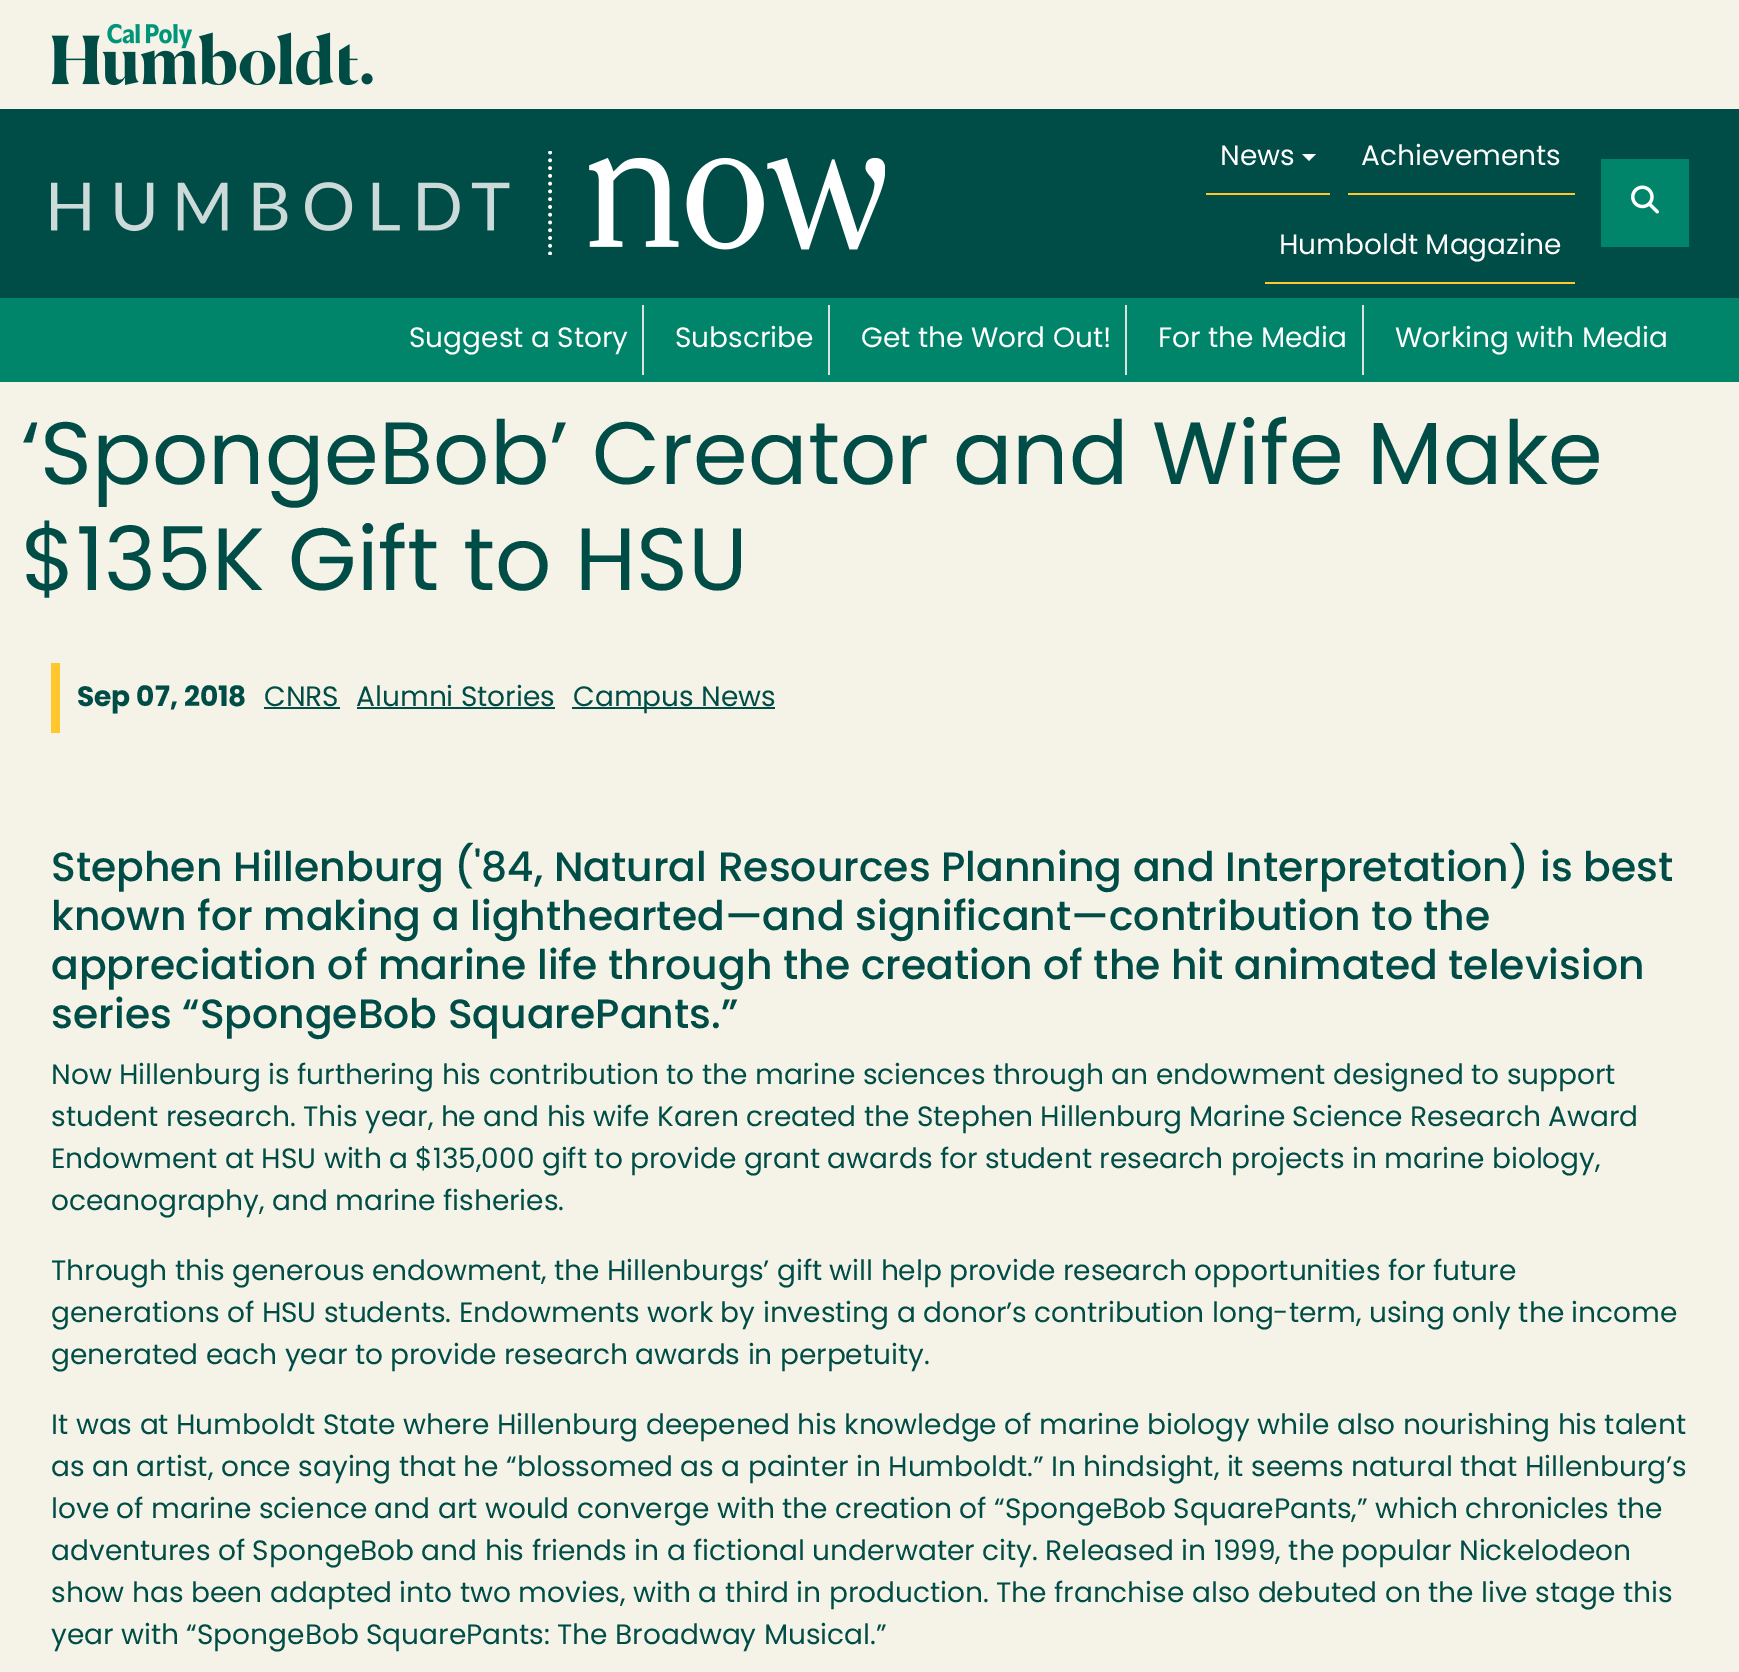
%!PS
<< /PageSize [1739 1672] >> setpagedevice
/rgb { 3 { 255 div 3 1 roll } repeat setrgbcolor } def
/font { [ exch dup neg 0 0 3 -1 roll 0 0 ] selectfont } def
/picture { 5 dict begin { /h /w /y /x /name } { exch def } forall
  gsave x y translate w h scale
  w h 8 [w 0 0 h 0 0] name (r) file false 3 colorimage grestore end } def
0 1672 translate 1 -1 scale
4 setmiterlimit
245 243 231 rgb
0 0 1739 1672 rectfill
(img/1.rgb) 51 23 322 63 picture
0 76 70 rgb
0 109 1739 189 rectfill
(img/2.rgb) 51 151 834 104 picture
255 199 44 rgb
1206 193 124 2 rectfill
255 255 255 rgb
1302 154 moveto 1316 154 lineto 1309 161 lineto closepath fill
[
  [1348 193 227 2 255 199 44]
  [1265 282 310 2 255 199 44]
  [1601 159 88 88 0 133 106]
] { aload pop rgb rectfill } forall
(img/3.rgb) 1631 185 28 29 picture
[
  [0 298 1739 84 0 133 106]
  [642 305 2 70 224 224 224]
  [828 305 2 70 224 224 224]
  [1125 305 2 70 224 224 224]
  [1362 305 2 70 224 224 224]
  [51 663 9 70 255 199 44]
  [264 707 76 2 0 76 70]
  [357 707 198 2 0 76 70]
  [572 707 203 2 0 76 70]
] { aload pop rgb rectfill } forall
/Poppins-Regular 28 font
255 255 255 rgb
[
  [(News) 1220 165]
  [(Achievements) 1361 165]
  [(Humboldt Magazine) 1279 254]
  [(Suggest a Story) 409 347]
  [(Subscribe) 675 347]
  [(Get the Word Out!) 861 347]
  [(For the Media) 1158 347]
  [(Working with Media) 1395 347]
] { aload pop moveto show } forall
/Poppins-Regular 88.25 font
0 76 70 rgb
21 484 moveto (‘SpongeBob’ Creator and Wife Make) show
21 590 moveto ($135K Gift to HSU) show
/Poppins-Bold 28 font
77 706 moveto (Sep 07, 2018) show
/Poppins-Regular 28 font
[
  [(CNRS) 264 706]
  [(Alumni Stories) 356 706]
  [(Campus News) 573 706]
] { aload pop moveto show } forall
/Poppins-Medium 40.9 font
[
  [(Stephen Hillenburg \('84, Natural Resources Planning and Interpretation\) is best) 51 881]
  [(known for making a lighthearted—and significant—contribution to the) 51 930]
  [(appreciation of marine life through the creation of the hit animated television) 51 979]
  [(series “SpongeBob SquarePants.”) 51 1028]
] { aload pop moveto show } forall
/Poppins-Regular 28 font
[
  [(Now Hillenburg is furthering his contribution to the marine sciences through an endowment designed to support) 51 1084]
  [(student research. This year, he and his wife Karen created the Stephen Hillenburg Marine Science Research Award) 51 1126]
  [(Endowment at HSU with a $135,000 gift to provide grant awards for student research projects in marine biology,) 51 1168]
  [(oceanography, and marine fisheries.) 51 1210]
  [(Through this generous endowment, the Hillenburgs’ gift will help provide research opportunities for future) 51 1280]
  [(generations of HSU students. Endowments work by investing a donor’s contribution long-term, using only the income) 51 1322]
  [(generated each year to provide research awards in perpetuity.) 51 1364]
  [(It was at Humboldt State where Hillenburg deepened his knowledge of marine biology while also nourishing his talent) 51 1434]
  [(as an artist, once saying that he “blossomed as a painter in Humboldt.” In hindsight, it seems natural that Hillenburg’s) 51 1476]
  [(love of marine science and art would converge with the creation of “SpongeBob SquarePants,” which chronicles the) 51 1518]
  [(adventures of SpongeBob and his friends in a fictional underwater city. Released in 1999, the popular Nickelodeon) 51 1560]
  [(show has been adapted into two movies, with a third in production. The franchise also debuted on the live stage this) 51 1602]
  [(year with “SpongeBob SquarePants: The Broadway Musical.”) 51 1644]
] { aload pop moveto show } forall
showpage
